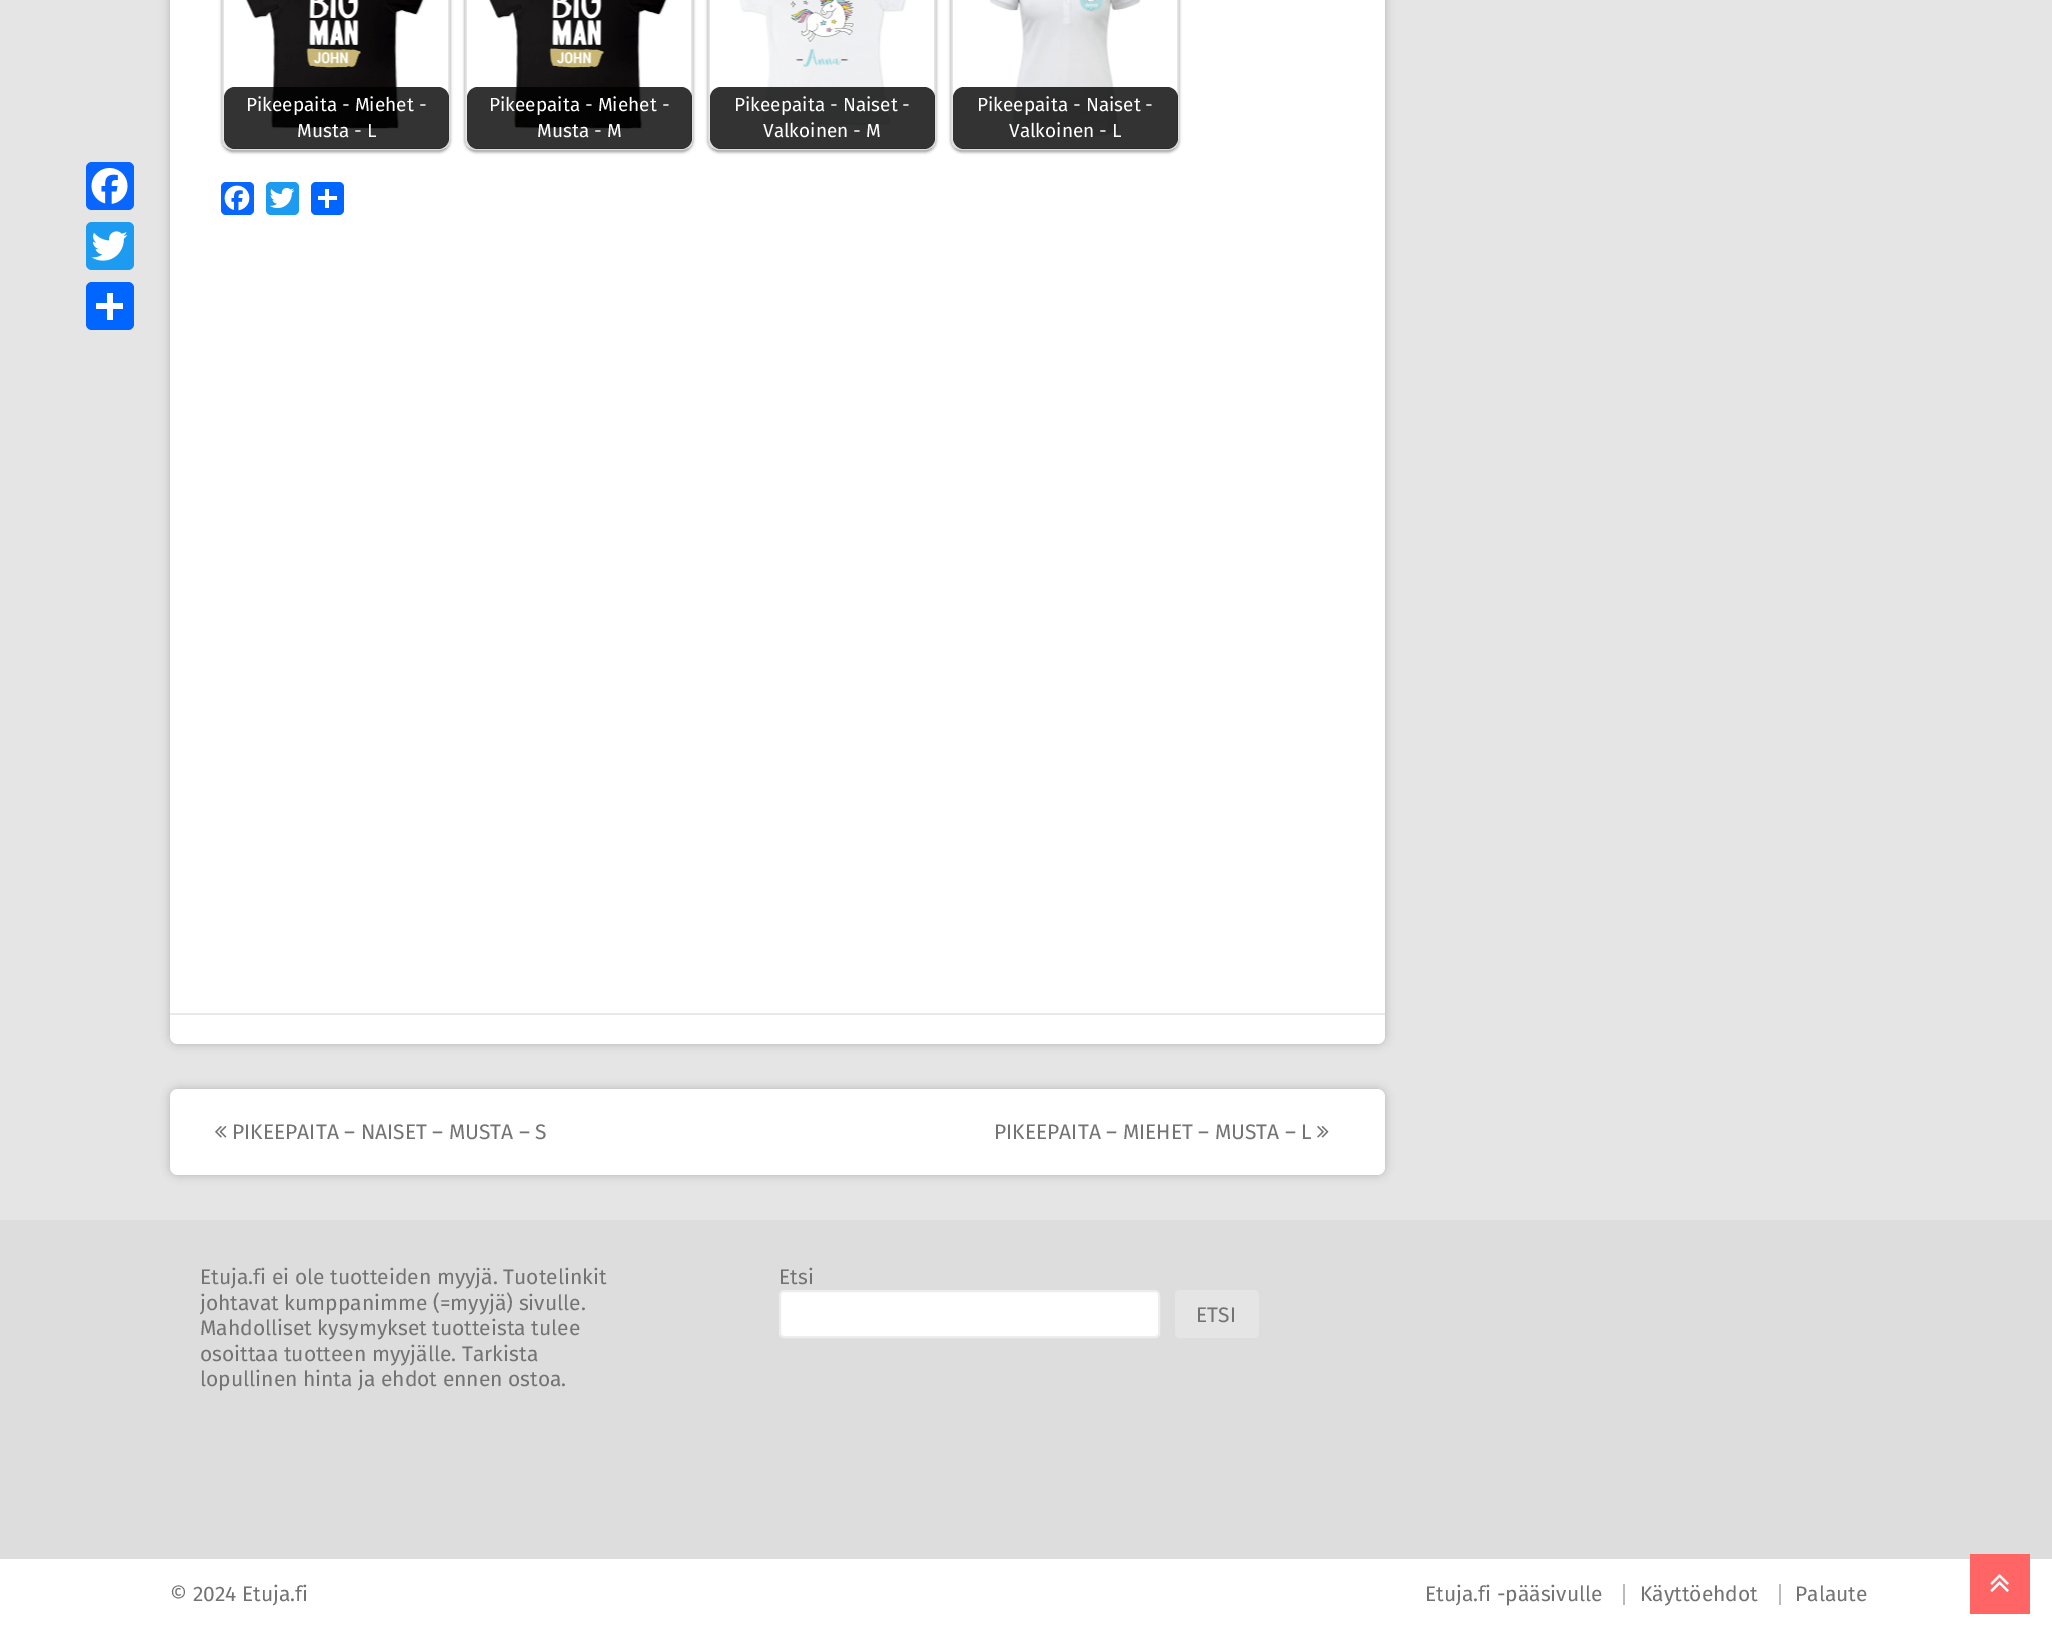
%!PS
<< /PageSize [2052 1629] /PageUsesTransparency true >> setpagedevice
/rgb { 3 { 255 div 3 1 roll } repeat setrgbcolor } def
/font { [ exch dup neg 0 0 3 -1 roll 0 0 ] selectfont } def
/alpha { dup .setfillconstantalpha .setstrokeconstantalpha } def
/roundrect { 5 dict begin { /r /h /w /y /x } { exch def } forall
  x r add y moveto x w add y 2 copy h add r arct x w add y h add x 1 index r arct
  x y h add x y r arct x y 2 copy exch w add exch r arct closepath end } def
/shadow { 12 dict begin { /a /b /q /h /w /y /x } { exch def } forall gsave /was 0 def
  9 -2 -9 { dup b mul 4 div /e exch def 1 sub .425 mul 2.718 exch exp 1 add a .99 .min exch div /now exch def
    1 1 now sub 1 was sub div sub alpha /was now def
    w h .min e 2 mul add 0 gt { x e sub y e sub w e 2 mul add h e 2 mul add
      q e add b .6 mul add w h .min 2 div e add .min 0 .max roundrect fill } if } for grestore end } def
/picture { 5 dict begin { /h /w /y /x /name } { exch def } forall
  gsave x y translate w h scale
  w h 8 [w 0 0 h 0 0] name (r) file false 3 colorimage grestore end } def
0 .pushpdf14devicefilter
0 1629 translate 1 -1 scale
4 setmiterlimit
229 229 229 rgb
0 0 2052 1629 rectfill
0 0 0 rgb
170 -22 1215 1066 8 4.5 0.2 shadow
255 255 255 rgb
170 -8 1215 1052 8 roundrect fill
0 0 0 rgb
222 -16 228 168 11 1.5 0.4 shadow
221 221 221 rgb
2 setlinewidth
223 -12 226 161 10 roundrect stroke
(img/1.rgb) 223 0 226 148 picture
0.8 alpha
0 0 0 rgb
224 87 225 62 11 roundrect fill
1 alpha
465 -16 228 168 11 1.5 0.4 shadow
221 221 221 rgb
466 -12 226 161 10 roundrect stroke
(img/1.rgb) 466 0 226 148 picture
0.8 alpha
0 0 0 rgb
467 87 225 62 11 roundrect fill
1 alpha
708 -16 228 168 11 1.5 0.4 shadow
221 221 221 rgb
709 -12 226 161 10 roundrect stroke
(img/2.rgb) 709 0 226 148 picture
0.8 alpha
0 0 0 rgb
710 87 225 62 11 roundrect fill
1 alpha
951 -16 228 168 11 1.5 0.4 shadow
221 221 221 rgb
952 -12 226 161 10 roundrect stroke
(img/3.rgb) 952 0 226 148 picture
0.8 alpha
0 0 0 rgb
953 87 225 62 11 roundrect fill
1 alpha
8 102 255 rgb
221 182 33 33 5 roundrect fill
(img/4.rgb) 224 185 26 26 picture
29 155 240 rgb
266 182 33 33 5 roundrect fill
(img/5.rgb) 269 187 26 22 picture
1 102 255 rgb
311 182 33 33 5 roundrect fill
[
  [325 189 4 19 255 255 255]
  [318 196 19 4 255 255 255]
  [170 1013 1215 2 233 233 233]
] { aload pop rgb rectfill } forall
8 102 255 rgb
86 162 48 48 6 roundrect fill
(img/6.rgb) 91 168 37 36 picture
29 155 240 rgb
86 222 48 48 6 roundrect fill
(img/7.rgb) 91 231 37 30 picture
1 102 255 rgb
86 282 48 48 6 roundrect fill
255 255 255 rgb
107 293 6 27 rectfill
96 303 27 6 rectfill
0 0 0 rgb
170 1089 1215 86 8 4.5 0.2 shadow
255 255 255 rgb
170 1089 1215 86 8 roundrect fill
(img/8.rgb) 215 1126 12 12 picture
(img/9.rgb) 1317 1126 12 12 picture
221 221 221 rgb
0 1220 2052 339 rectfill
255 255 255 rgb
780 1291 379 46 4 roundrect gsave fill grestore
237 237 237 rgb
stroke
229 229 229 rgb
1175 1290 84 48 5 roundrect fill
[
  [0 1559 2052 70 255 255 255]
  [1623 1584 2 21 187 187 187]
  [1779 1584 2 21 187 187 187]
  [1970 1554 60 60 255 101 101]
] { aload pop rgb rectfill } forall
(img/10.rgb) 1990 1574 19 18 picture
/FiraSans-Regular 19 font
255 255 255 rgb
[
  [(Pikeepaita - Miehet -) 246 111]
  [(Musta - L) 297 137]
  [(Pikeepaita - Miehet -) 489 111]
  [(Musta - M) 537 137]
  [(Pikeepaita - Naiset -) 734 111]
  [(Valkoinen - M) 763 137]
  [(Pikeepaita - Naiset -) 977 111]
  [(Valkoinen - L) 1009 137]
] { aload pop moveto show } forall
/FiraSans-Regular 21 font
115 115 115 rgb
[
  [(PIKEEPAITA – NAISET – MUSTA – S) 232 1139]
  [(PIKEEPAITA – MIEHET – MUSTA – L) 994 1139]
  [(Etuja.fi ei ole tuotteiden myyjä. Tuotelinkit) 200 1284]
  [(johtavat kumppanimme \(=myyjä\) sivulle.) 200 1310]
  [(Mahdolliset kysymykset tuotteista tulee) 200 1335]
  [(osoittaa tuotteen myyjälle. Tarkista) 200 1361]
  [(lopullinen hinta ja ehdot ennen ostoa.) 200 1386]
  [(Etsi) 779 1284]
  [(ETSI) 1196 1322]
  [(© 2024 Etuja.fi) 170 1601]
  [(Etuja.fi -pääsivulle) 1425 1601]
  [(Käyttöehdot) 1640 1601]
  [(Palaute) 1795 1601]
] { aload pop moveto show } forall
.poppdf14devicefilter showpage
